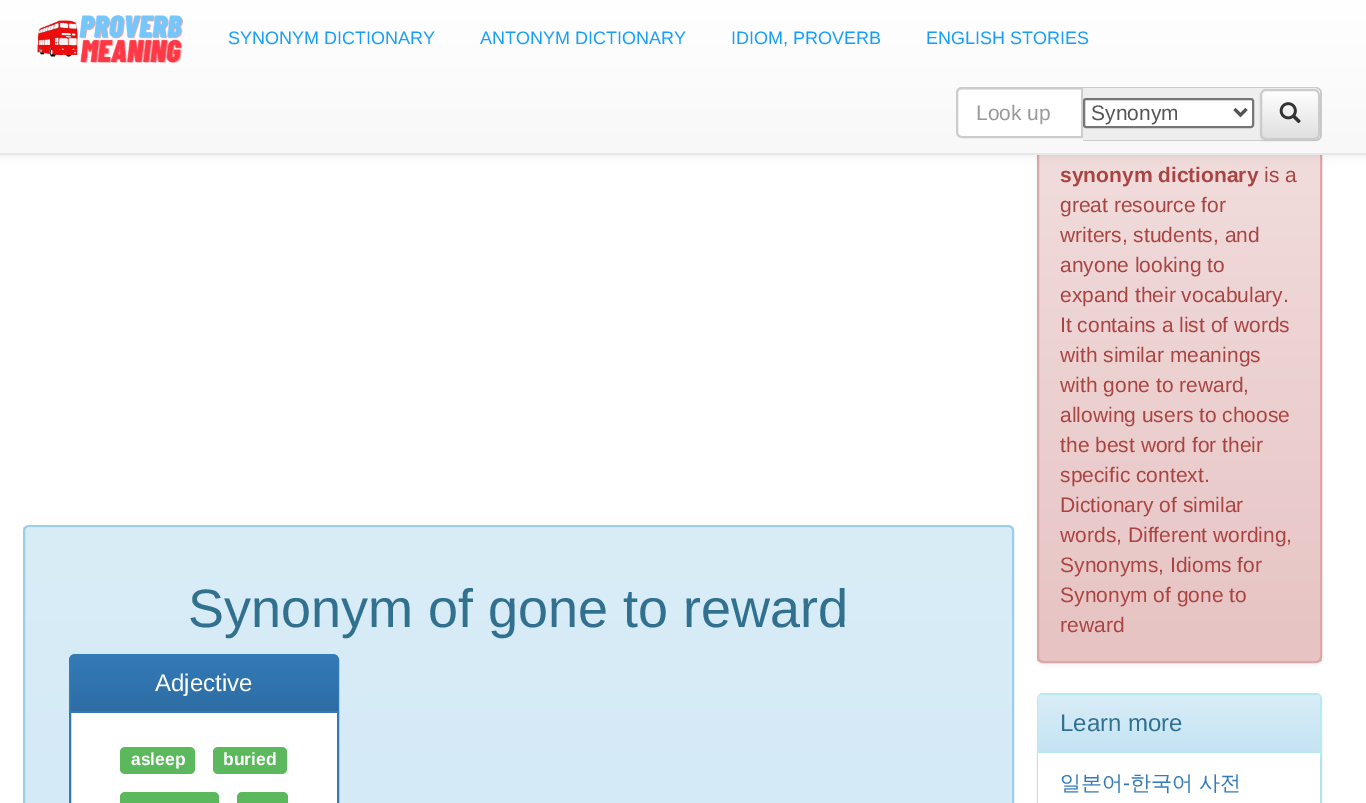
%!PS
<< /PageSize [1366 803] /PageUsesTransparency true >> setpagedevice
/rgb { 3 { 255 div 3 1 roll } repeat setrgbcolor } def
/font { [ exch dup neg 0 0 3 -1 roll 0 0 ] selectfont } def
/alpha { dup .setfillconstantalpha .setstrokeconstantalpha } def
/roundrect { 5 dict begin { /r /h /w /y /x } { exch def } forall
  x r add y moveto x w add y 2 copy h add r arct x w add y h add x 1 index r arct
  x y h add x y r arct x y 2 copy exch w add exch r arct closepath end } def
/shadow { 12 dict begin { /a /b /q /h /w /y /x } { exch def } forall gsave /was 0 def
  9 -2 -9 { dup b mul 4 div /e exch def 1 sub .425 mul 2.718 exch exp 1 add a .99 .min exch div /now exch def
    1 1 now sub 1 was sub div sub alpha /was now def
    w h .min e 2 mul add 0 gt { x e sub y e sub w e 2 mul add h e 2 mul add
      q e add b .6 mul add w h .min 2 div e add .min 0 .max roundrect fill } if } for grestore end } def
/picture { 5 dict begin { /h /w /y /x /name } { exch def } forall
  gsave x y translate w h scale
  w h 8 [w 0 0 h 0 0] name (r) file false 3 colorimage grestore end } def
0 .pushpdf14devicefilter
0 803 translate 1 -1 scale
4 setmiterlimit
255 255 255 rgb
0 0 1366 803 rectfill
0 0 0 rgb
1037 107 285 558 6 1.5 0.05 shadow
gsave
1037 105 285 558 6 roundrect clip newpath
gsave 1037 155 moveto 1322 155 lineto 1322 662 lineto 1037 662 lineto closepath clip newpath
<< /ShadingType 2 /ColorSpace /DeviceRGB /Coords [1179 107 1179 662] /Extend [true true] /Function << /FunctionType 2 /Domain [0 1] /C0 [0.949 0.871 0.871] /C1 [0.906 0.765 0.765] /N 1 >> >> shfill grestore
grestore
220 167 167 rgb
2 setlinewidth
1038 106 283 556 5 roundrect stroke
0 0 0 rgb
0 2 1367 154 0 4 0.07 shadow
gsave 0 0 moveto 1366 0 lineto 1366 153 lineto 0 153 lineto closepath clip newpath
<< /ShadingType 2 /ColorSpace /DeviceRGB /Coords [683 0 683 153] /Extend [true true] /Function << /FunctionType 2 /Domain [0 1] /C0 [1 1 1] /C1 [0.973 0.973 0.973] /N 1 >> >> shfill grestore
231 231 231 rgb
0 153 1366 2 rectfill
(img/1.rgb) 37 15 146 48 picture
255 255 255 rgb
962 87 moveto 1083 87 lineto 1083 138 lineto 962 138 lineto 958.5 138 956 135.5 956 132 curveto 956 93 lineto 956 89.5 958.5 87 962 87 curveto closepath fill
236 236 236 rgb
962 90 moveto 1082 90 lineto 1082 89 lineto 962 89 lineto 959 89 957 91 957 94 curveto 957 92 959 90 962 90 curveto closepath fill
204 204 204 rgb
962 88 moveto 1082 88 lineto 1082 137 lineto 962 137 lineto 959 137 957 135 957 132 curveto 957 93 lineto 957 90 959 88 962 88 curveto closepath stroke
238 238 238 rgb
1083 87 moveto 1316 87 lineto 1319.5 87 1322 89.5 1322 93 curveto 1322 135 lineto 1322 138.5 1319.5 141 1316 141 curveto 1083 141 lineto closepath fill
204 204 204 rgb
1083 87 moveto 1316 87 lineto 1319 87 1322 90 1322 93 curveto 1322 135 lineto 1322 138 1319 141 1316 141 curveto 1083 141 lineto closepath 1083 88 moveto 1316 88 lineto 1318 88 1320 91 1320 93 curveto 1320 135 lineto 1320 137 1318 140 1316 140 curveto 1083 140 lineto closepath eofill
255 255 255 rgb
1084 99 169 28 2 roundrect gsave fill grestore
118 118 118 rgb
stroke
85 85 85 rgb
3 setlinewidth
1234.5 109 moveto 1240.5 115 lineto 1246.5 109 lineto stroke
0 0 0 rgb
1260 90 60 51 6 1 0.07 shadow
gsave
1260 89 60 51 6 roundrect clip newpath
gsave 1260 90 moveto 1320 90 lineto 1320 138 lineto 1260 138 lineto closepath clip newpath
<< /ShadingType 2 /ColorSpace /DeviceRGB /Coords [1290 90 1290 138] /Extend [true true] /Function << /FunctionType 2 /Domain [0 1] /C0 [1 1 1] /C1 [0.878 0.878 0.878] /N 1 >> >> shfill grestore
grestore
0.15 alpha
255 255 255 rgb
1266 92 moveto 1306 92 lineto 1321 92 1318 93 1318 109 curveto 1318 136 lineto 1320 134 1319 129 1319 127 curveto 1319 114 lineto 1319 88 1324 90 1298 90 curveto 1275 90 lineto 1269 90 1262 88 1262 96 curveto 1262 94 1264 92 1266 92 curveto closepath fill
1 alpha
204 204 204 rgb
2 setlinewidth
1261 90 58 49 5 roundrect stroke
(img/2.rgb) 1279 102 22 22 picture
gsave
23 525 991 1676 6 roundrect clip newpath
gsave 23 527 moveto 1014 527 lineto 1014 803 lineto 23 803 lineto closepath clip newpath
<< /ShadingType 2 /ColorSpace /DeviceRGB /Coords [518 527 518 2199] /Extend [true true] /Function << /FunctionType 2 /Domain [0 1] /C0 [0.851 0.929 0.969] /C1 [0.725 0.871 0.941] /N 1 >> >> shfill grestore
grestore
0.25 alpha
255 255 255 rgb
28 528 moveto 1008 528 lineto 1010 528 1012 530 1012 532 curveto 1012 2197 lineto 1013 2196 1013 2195 1013 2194 curveto 1013 532 lineto 1013 529 1011 527 1008 527 curveto 29 527 lineto 26 527 24 529 24 532 curveto 24 530 26 528 28 528 curveto closepath fill
1 alpha
154 207 234 rgb
24 526 989 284 5 roundrect stroke
255 255 255 rgb
70 655 268 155 5 roundrect gsave fill grestore
51 122 183 rgb
stroke
76 656 moveto 333 656 lineto 336 656 338 658 338 661 curveto 338 713 lineto 71 713 lineto 71 661 lineto 71 658 73 656 76 656 curveto closepath fill
gsave 76 656 moveto 333 656 lineto 336 656 338 658 338 661 curveto 338 711 lineto 71 711 lineto 71 661 lineto 71 658 73 656 76 656 curveto closepath clip newpath
<< /ShadingType 2 /ColorSpace /DeviceRGB /Coords [204 656 204 711] /Extend [true true] /Function << /FunctionType 2 /Domain [0 1] /C0 [0.2 0.478 0.718] /C1 [0.18 0.427 0.643] /N 1 >> >> shfill grestore
92 184 92 rgb
120 747 75 27 5 roundrect fill
213 747 74 27 5 roundrect fill
120 792 99 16 5 roundrect fill
237 792 51 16 5 roundrect fill
188 232 241 rgb
1038 694 283 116 5 roundrect stroke
gsave 1043 695 moveto 1315 695 lineto 1318 695 1320 697 1320 700 curveto 1320 752 lineto 1038 752 lineto 1038 700 lineto 1038 697 1040 695 1043 695 curveto closepath clip newpath
<< /ShadingType 2 /ColorSpace /DeviceRGB /Coords [1179 695 1179 752] /Extend [true true] /Function << /FunctionType 2 /Domain [0 1] /C0 [0.851 0.929 0.969] /C1 [0.769 0.89 0.953] /N 1 >> >> shfill grestore
1038 752 282 1 rectfill
0 0 0 rgb
1038 755 282 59 6 1.5 0.07 shadow
255 255 255 rgb
1038 753 282 50 rectfill
/LiberationSans-Regular 18 font
21 159 251 rgb
[
  [(SYNONYM DICTIONARY) 228 44]
  [(ANTONYM DICTIONARY) 480 44]
  [(IDIOM, PROVERB) 731 44]
  [(ENGLISH STORIES) 926 44]
] { aload pop moveto show } forall
/LiberationSans-Regular 21 font
153 153 153 rgb
976 120 moveto (Look up) show
85 85 85 rgb
1091 120 moveto (Synonym) show
/LiberationSans-Regular 54 font
49 112 143 rgb
188 627 moveto (Synonym of gone to reward) show
/LiberationSans-Regular 24 font
255 255 255 rgb
155 691 moveto (Adjective) show
/LiberationSans-Bold 17.5 font
131 765 moveto (asleep) show
223 765 moveto (buried) show
/LiberationSans-Bold 21 font
169 68 66 rgb
1060 182 moveto (synonym dictionary) show
/LiberationSans-Regular 21 font
[
  [(is a) 1264 182]
  [(great resource for) 1060 212]
  [(writers, students, and) 1060 242]
  [(anyone looking to) 1060 272]
  [(expand their vocabulary.) 1060 302]
  [(It contains a list of words) 1060 332]
  [(with similar meanings) 1060 362]
  [(with gone to reward,) 1060 392]
  [(allowing users to choose) 1060 422]
  [(the best word for their) 1060 452]
  [(specific context.) 1060 482]
  [(Dictionary of similar) 1060 512]
  [(words, Different wording,) 1060 542]
  [(Synonyms, Idioms for) 1060 572]
  [(Synonym of gone to) 1060 602]
  [(reward) 1060 632]
] { aload pop moveto show } forall
/LiberationSans-Regular 24 font
49 112 143 rgb
1060 731 moveto (Learn more) show
/WenQuanYiZenHei-Medium 21 font
51 122 183 rgb
1060 790 moveto (일본어) show
/LiberationSans-Regular 21 font
1123 790 moveto (-) show
/WenQuanYiZenHei-Medium 21 font
1130 790 moveto (한국어 사전) show
.poppdf14devicefilter showpage
